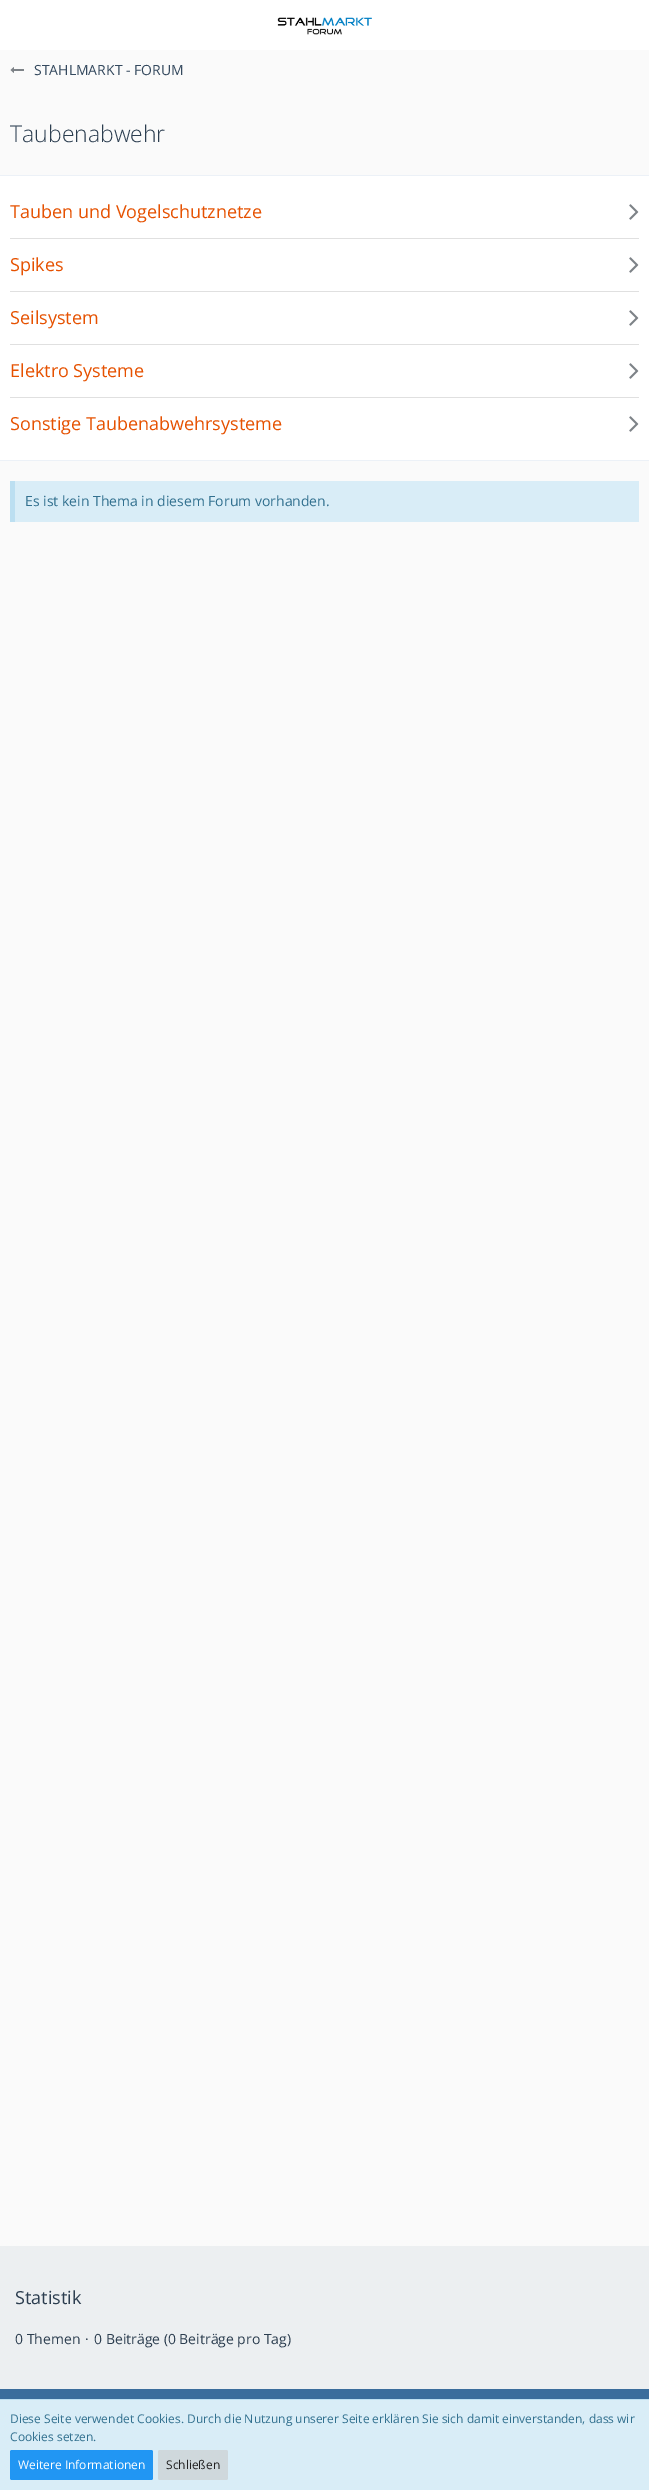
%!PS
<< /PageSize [649 2490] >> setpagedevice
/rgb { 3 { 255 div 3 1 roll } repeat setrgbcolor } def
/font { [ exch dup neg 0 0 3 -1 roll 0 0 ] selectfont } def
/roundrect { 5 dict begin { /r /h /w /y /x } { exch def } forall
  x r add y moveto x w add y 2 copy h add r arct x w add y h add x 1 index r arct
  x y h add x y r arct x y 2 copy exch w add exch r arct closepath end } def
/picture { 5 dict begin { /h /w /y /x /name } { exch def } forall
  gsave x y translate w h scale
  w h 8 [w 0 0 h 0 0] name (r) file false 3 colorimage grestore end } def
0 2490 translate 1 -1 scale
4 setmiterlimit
250 250 250 rgb
0 0 649 2490 rectfill
255 255 255 rgb
0 0 649 50 rectfill
(img/1.rgb) 277 17 95 18 picture
(img/2.rgb) 10 67 14 6 picture
[
  [0 176 649 284 255 255 255]
  [0 175 649 1 236 241 247]
  [0 460 649 1 236 241 247]
  [10 238 629 1 224 224 224]
] { aload pop rgb rectfill } forall
(img/3.rgb) 629 204 10 16 picture
10 291 629 1 rectfill
(img/3.rgb) 629 257 10 16 picture
10 344 629 1 rectfill
(img/3.rgb) 629 310 10 16 picture
10 397 629 1 rectfill
(img/3.rgb) 629 363 10 16 picture
(img/3.rgb) 629 416 10 16 picture
[
  [15 481 624 41 217 237 247]
  [10 481 5 41 188 223 241]
  [0 2246 649 143 236 239 241]
  [0 2389 649 10 58 109 156]
  [0 2400 649 90 217 237 247]
  [0 2399 649 1 188 223 241]
] { aload pop rgb rectfill } forall
33 150 243 rgb
10 2450 143 30 2 roundrect fill
207 216 220 rgb
158 2450 70 30 2 roundrect fill
/OpenSans-Regular 14 font
52 73 94 rgb
34 75 moveto (STAHLMARKT - FORUM) show
/OpenSans-Light 23 font
44 62 80 rgb
10 142 moveto (Taubenabwehr) show
/OpenSans-Regular 18 font
230 81 0 rgb
[
  [(Tauben und Vogelschutznetze) 10 218]
  [(Spikes) 10 271]
  [(Seilsystem) 10 324]
  [(Elektro Systeme) 10 377]
  [(Sonstige Taubenabwehrsysteme) 10 430]
] { aload pop moveto show } forall
/OpenSans-Regular 14 font
49 112 143 rgb
25 506 moveto (Es ist kein Thema in diesem Forum vorhanden.) show
/OpenSans-Regular 18 font
44 62 80 rgb
15 2304 moveto (Statistik) show
/OpenSans-Regular 14 font
[
  [(0 Themen) 15 2344]
  [(·) 85 2344]
  [(0 Beiträge \(0 Beiträge pro Tag\)) 94 2344]
] { aload pop moveto show } forall
/OpenSans-Regular 12 font
49 112 143 rgb
10 2423 moveto (Diese Seite verwendet Cookies. Durch die Nutzung unserer Seite erklären Sie sich damit einverstanden, dass wir) show
10 2441 moveto (Cookies setzen.) show
255 255 255 rgb
18 2469 moveto (Weitere Informationen) show
33 33 33 rgb
166 2469 moveto (Schließen) show
showpage
